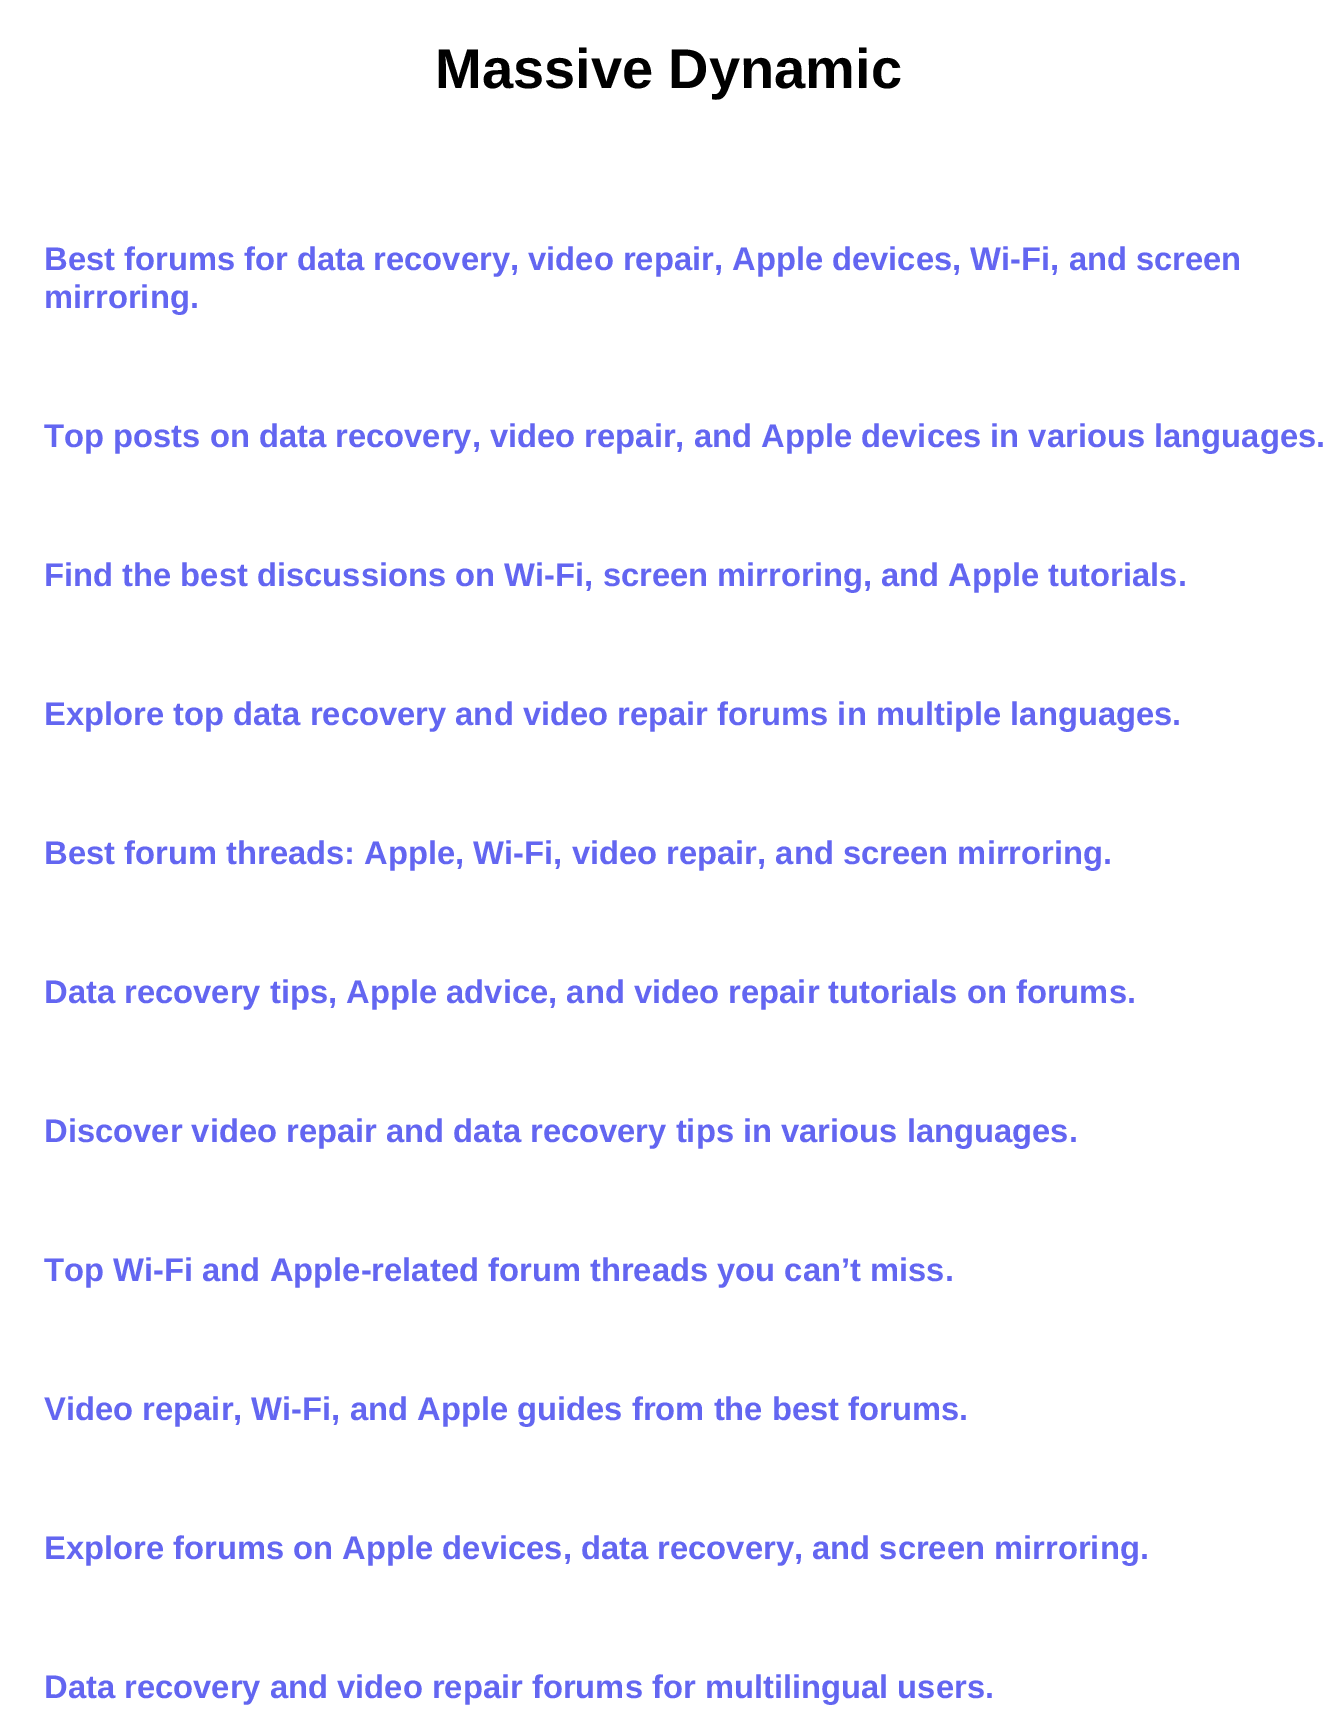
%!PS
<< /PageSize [1337 1732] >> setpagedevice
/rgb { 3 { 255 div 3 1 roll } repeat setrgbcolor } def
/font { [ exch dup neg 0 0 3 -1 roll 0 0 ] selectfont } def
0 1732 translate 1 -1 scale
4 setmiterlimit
255 255 255 rgb
0 0 1337 1732 rectfill
/LiberationSans-Bold 56 font
0 0 0 rgb
435 88 moveto (Massive Dynamic) show
/LiberationSans-Bold 32.75 font
99 102 241 rgb
[
  [(Best forums for data recovery, video repair, Apple devices, Wi-Fi, and screen) 44 270]
  [(mirroring.) 44 308]
  [(Top posts on data recovery, video repair, and Apple devices in various languages.) 44 447]
  [(Find the best discussions on Wi-Fi, screen mirroring, and Apple tutorials.) 44 586]
  [(Explore top data recovery and video repair forums in multiple languages.) 44 725]
  [(Best forum threads: Apple, Wi-Fi, video repair, and screen mirroring.) 44 864]
  [(Data recovery tips, Apple advice, and video repair tutorials on forums.) 44 1003]
  [(Discover video repair and data recovery tips in various languages.) 44 1142]
  [(Top Wi-Fi and Apple-related forum threads you can’t miss.) 44 1281]
  [(Video repair, Wi-Fi, and Apple guides from the best forums.) 44 1420]
  [(Explore forums on Apple devices, data recovery, and screen mirroring.) 44 1559]
  [(Data recovery and video repair forums for multilingual users.) 44 1698]
] { aload pop moveto show } forall
showpage
